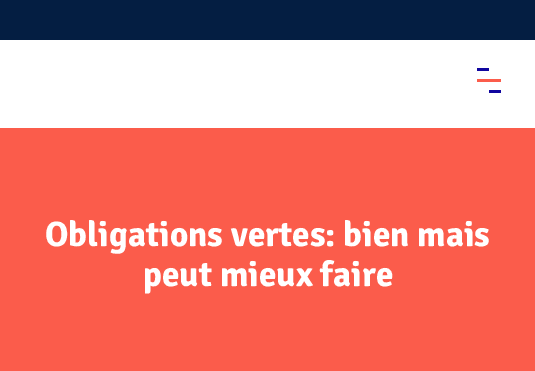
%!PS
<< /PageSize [535 371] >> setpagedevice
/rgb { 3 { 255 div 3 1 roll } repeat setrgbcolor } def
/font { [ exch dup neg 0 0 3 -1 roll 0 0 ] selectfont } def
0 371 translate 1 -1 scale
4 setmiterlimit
255 255 255 rgb
0 0 535 371 rectfill
[
  [0 0 535 40 4 30 66]
  [477 68 12 3 16 6 159]
  [477 79 24 3 251 92 75]
  [489 90 12 3 16 6 159]
  [0 128 535 243 251 92 75]
] { aload pop rgb rectfill } forall
/Signika-Bold 35.25 font
255 255 255 rgb
45 246 moveto (Obligations vertes: bien mais) show
143 286 moveto (peut mieux faire) show
showpage
